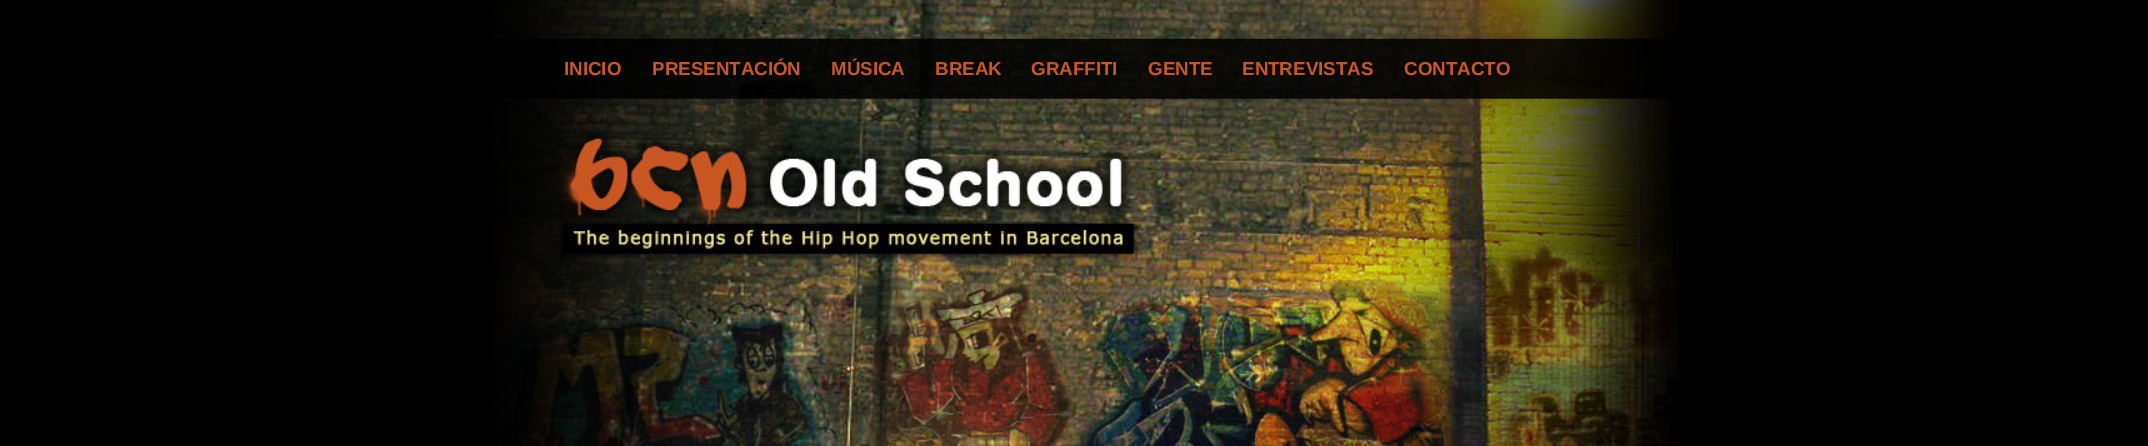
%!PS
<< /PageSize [2148 446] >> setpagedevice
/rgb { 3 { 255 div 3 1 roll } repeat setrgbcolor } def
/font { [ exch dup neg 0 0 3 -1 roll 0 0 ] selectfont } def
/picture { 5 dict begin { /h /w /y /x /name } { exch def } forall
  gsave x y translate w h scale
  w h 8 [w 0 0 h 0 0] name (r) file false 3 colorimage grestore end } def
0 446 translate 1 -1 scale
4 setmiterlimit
1 0 0 rgb
0 0 2148 446 rectfill
(img/1.rgb) 495 0 1184 446 picture
/LiberationSans-Bold 18.75 font
201 87 35 rgb
[
  [(INICIO) 564 75]
  [(PRESENTACIÓN) 652 75]
  [(MÚSICA) 831 75]
  [(BREAK) 935 75]
  [(GRAFFITI) 1031 75]
  [(GENTE) 1148 75]
  [(ENTREVISTAS) 1242 75]
  [(CONTACTO) 1404 75]
] { aload pop moveto show } forall
showpage
